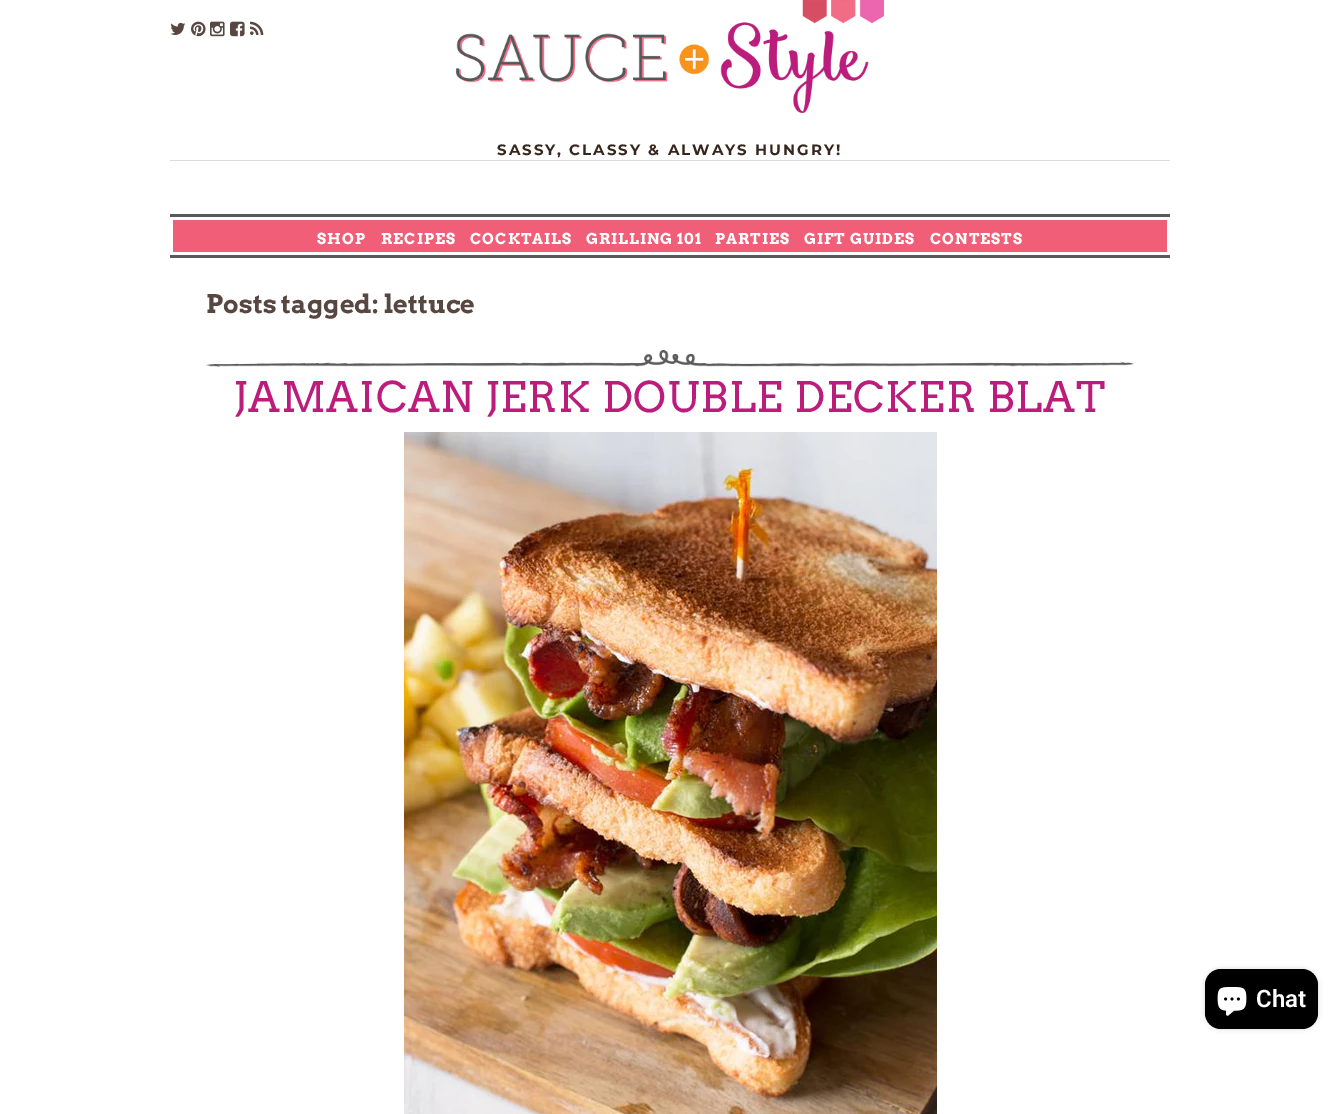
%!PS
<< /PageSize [1340 1114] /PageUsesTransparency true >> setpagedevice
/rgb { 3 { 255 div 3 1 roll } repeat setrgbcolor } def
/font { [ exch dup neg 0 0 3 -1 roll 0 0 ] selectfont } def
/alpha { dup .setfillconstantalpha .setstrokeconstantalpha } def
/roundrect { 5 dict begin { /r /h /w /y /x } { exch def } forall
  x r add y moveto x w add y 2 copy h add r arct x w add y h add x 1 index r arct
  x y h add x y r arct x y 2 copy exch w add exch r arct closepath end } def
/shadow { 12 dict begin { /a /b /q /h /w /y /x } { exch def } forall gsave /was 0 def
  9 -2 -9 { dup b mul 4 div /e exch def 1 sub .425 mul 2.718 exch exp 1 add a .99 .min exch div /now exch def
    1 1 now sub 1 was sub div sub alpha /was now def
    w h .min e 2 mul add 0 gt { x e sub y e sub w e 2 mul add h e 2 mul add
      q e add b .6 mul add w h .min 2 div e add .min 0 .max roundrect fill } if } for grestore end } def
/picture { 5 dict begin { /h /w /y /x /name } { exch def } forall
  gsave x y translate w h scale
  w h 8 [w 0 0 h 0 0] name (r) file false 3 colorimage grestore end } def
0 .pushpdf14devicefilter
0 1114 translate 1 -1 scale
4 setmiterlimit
255 255 255 rgb
0 0 1340 1114 rectfill
(img/1.rgb) 170 22 16 13 picture
(img/2.rgb) 191 21 15 16 picture
(img/3.rgb) 210 21 15 16 picture
(img/4.rgb) 230 21 15 16 picture
(img/5.rgb) 250 21 14 14 picture
(img/6.rgb) 456 0 428 113 picture
[
  [170 160 1000 1 221 218 216]
  [173 220 994 32 240 94 120]
  [170 214 1000 3 89 89 91]
  [170 255 1000 3 89 89 91]
] { aload pop rgb rectfill } forall
(img/7.rgb) 206 350 928 17 picture
(img/8.rgb) 404 432 533 682 picture
0 0 0 rgb
1205 969 113 60 16 2.5 0.15 shadow
1205 969 113 60 16 roundrect fill
(img/9.rgb) 1217 987 30 29 picture
/Montserrat-Bold 15 font
55 38 30 rgb
497 155 moveto 2 0 (SASSY, CLASSY & ALWAYS HUNGRY!) ashow
/Arvo-Bold 15 font
255 255 255 rgb
317 244 moveto 1 0 (SHOP) ashow
381 244 moveto 1 0 (RECIPES) ashow
470 244 moveto 1 0 (COCKTAILS) ashow
586 244 moveto 1 0 (GRILLING 101) ashow
715 244 moveto 1 0 (PARTIES) ashow
804 244 moveto 1 0 (GIFT GUIDES) ashow
930 244 moveto 1 0 (CONTESTS) ashow
/Arvo-Bold 25.5 font
88 71 64 rgb
206 313 moveto (Posts tagged: lettuce) show
/Arvo-Regular 42 font
186 29 123 rgb
233 412 moveto 1 0 (JAMAICAN JERK DOUBLE DECKER BLAT) ashow
/Roboto-SemiBold 24 font
255 255 255 rgb
1256 1007 moveto (Chat) show
.poppdf14devicefilter showpage
